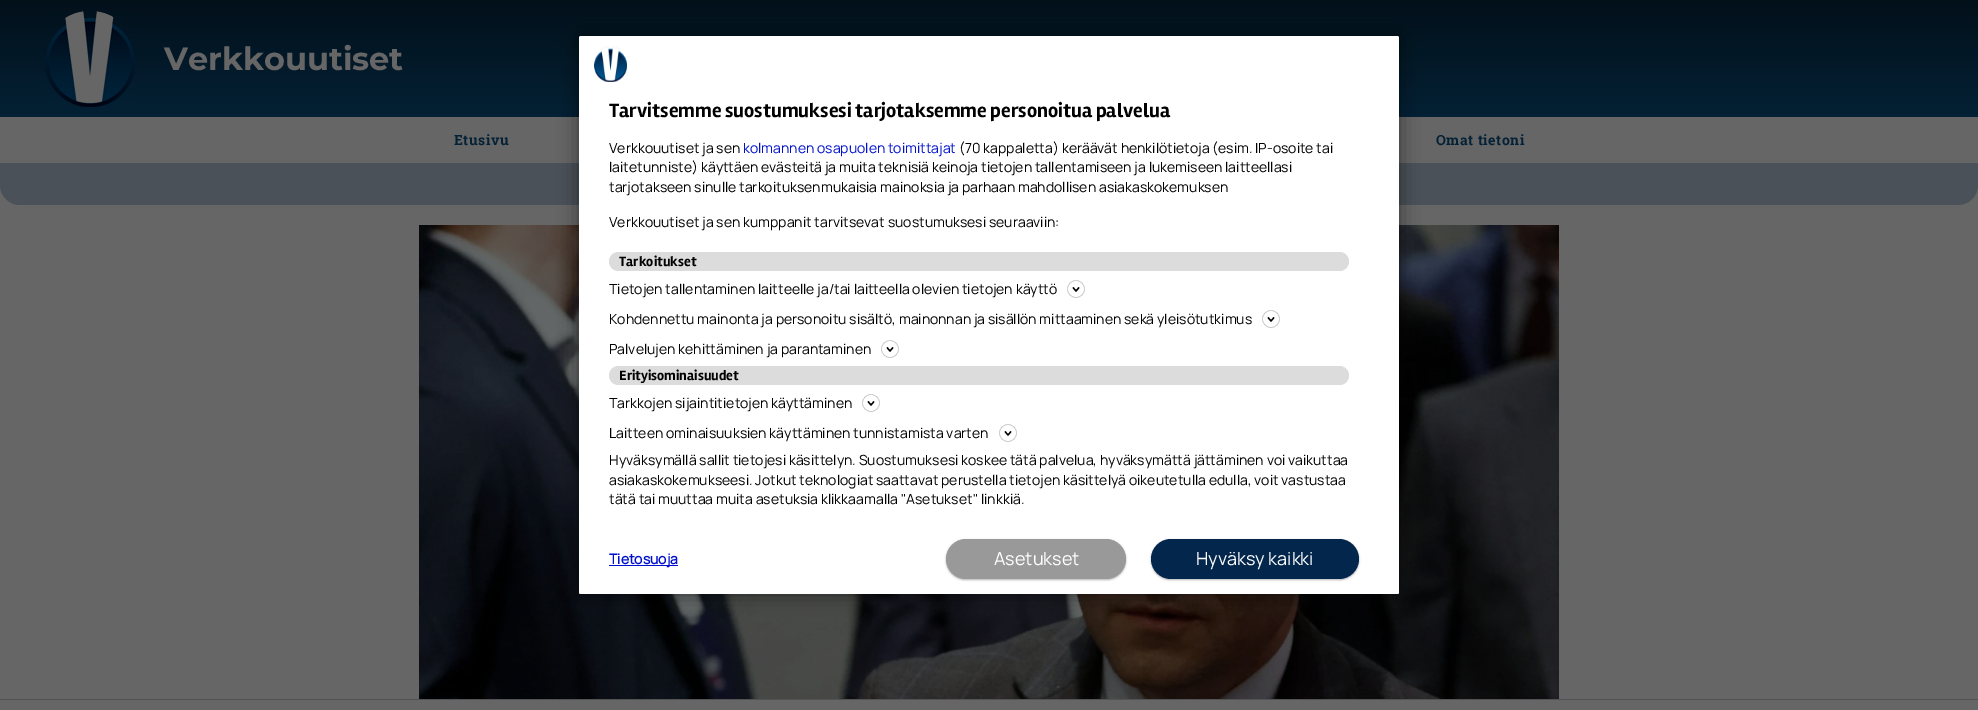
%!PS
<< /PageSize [1978 710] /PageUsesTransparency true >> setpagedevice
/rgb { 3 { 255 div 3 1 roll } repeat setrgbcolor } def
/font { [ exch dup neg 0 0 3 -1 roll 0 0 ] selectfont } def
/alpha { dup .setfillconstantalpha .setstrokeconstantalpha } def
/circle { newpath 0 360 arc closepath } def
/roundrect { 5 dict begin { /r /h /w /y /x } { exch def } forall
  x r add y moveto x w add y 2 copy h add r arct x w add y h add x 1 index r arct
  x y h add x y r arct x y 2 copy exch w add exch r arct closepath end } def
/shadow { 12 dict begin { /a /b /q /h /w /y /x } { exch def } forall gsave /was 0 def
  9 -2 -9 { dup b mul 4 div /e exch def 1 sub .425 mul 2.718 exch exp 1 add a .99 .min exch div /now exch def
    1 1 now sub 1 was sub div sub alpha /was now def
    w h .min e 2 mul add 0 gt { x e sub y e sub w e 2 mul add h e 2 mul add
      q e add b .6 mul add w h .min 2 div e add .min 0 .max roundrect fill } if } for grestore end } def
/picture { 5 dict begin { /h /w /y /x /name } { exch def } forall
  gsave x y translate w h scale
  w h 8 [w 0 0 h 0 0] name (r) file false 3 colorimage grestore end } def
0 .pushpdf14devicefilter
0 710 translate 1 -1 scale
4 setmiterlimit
102 102 102 rgb
0 0 1978 710 rectfill
gsave 0 0 moveto 1978 0 lineto 1978 117 lineto 0 117 lineto closepath clip newpath
<< /ShadingType 2 /ColorSpace /DeviceRGB /Coords [989 0 989 117] /Extend [true true] /Function << /FunctionType 2 /Domain [0 1] /C0 [0.008 0.063 0.102] /C1 [0.016 0.129 0.208] /N 1 >> >> shfill grestore
(img/1.rgb) 45 11 90 96 picture
74 81 88 rgb
0 163 moveto 1978 163 lineto 1978 185 lineto 1978 196 1969 205 1958 205 curveto 20 205 lineto 9 205 0 196 0 185 curveto closepath fill
(img/3.rgb) 419 225 1140 474 picture
0 0 0 rgb
579 36 820 558 2 10 0.5 shadow
255 255 255 rgb
579 36 820 558 2 roundrect fill
(img/2.rgb) 594 46 33 36 picture
220 220 220 rgb
609 252 740 19 9.5 roundrect fill
0 0 0 rgb
1.3 setlinewidth
1073 287.5 moveto 1076 291 lineto 1079 287.5 lineto stroke
196 196 196 rgb
0.6 setlinewidth
1076 289 8.5 circle stroke
0 0 0 rgb
1.3 setlinewidth
1268 317.5 moveto 1271 321 lineto 1274 317.5 lineto stroke
196 196 196 rgb
0.6 setlinewidth
1271 319 8.5 circle stroke
0 0 0 rgb
1.3 setlinewidth
887 347.5 moveto 890 351 lineto 893 347.5 lineto stroke
196 196 196 rgb
0.6 setlinewidth
890 349 8.5 circle stroke
220 220 220 rgb
609 366 740 19 9.5 roundrect fill
0 0 0 rgb
1.3 setlinewidth
868 401.5 moveto 871 405 lineto 874 401.5 lineto stroke
196 196 196 rgb
0.6 setlinewidth
871 403 8.5 circle stroke
0 0 0 rgb
1.3 setlinewidth
1005 431.5 moveto 1008 435 lineto 1011 431.5 lineto stroke
196 196 196 rgb
0.6 setlinewidth
1008 433 8.5 circle stroke
255 255 255 rgb
579 524 moveto 1399 524 lineto 1399 592 lineto 1399 593 1398 594 1397 594 curveto 581 594 lineto 580 594 579 593 579 592 curveto closepath fill
0 16 204 rgb
609 565 69 1 rectfill
0 0 0 rgb
946 540 180 40 20 1 0.3 shadow
153 153 153 rgb
946 539 180 40 20 roundrect fill
0 0 0 rgb
1151 540 208 40 20 1 0.3 shadow
2 38 76 rgb
1151 539 208 40 20 roundrect fill
82 82 82 rgb
0 699 1978 1 rectfill
/Montserrat-Bold 32 font
102 102 102 rgb
164 70 moveto (Verkkouutiset) show
/RobotoSlab-Bold 14 font
4 33 53 rgb
454 145 moveto 0.5 0 (Etusivu) ashow
1436 145 moveto 0.5 0 (Omat tietoni) ashow
/Rambla-Bold 20 font
0 0 0 rgb
609 117 moveto (Tarvitsemme suostumuksesi tarjotaksemme personoitua palvelua) show
/Manrope-ExtraLight 14 font
609 153 moveto (Verkkouutiset ja sen) show
0 16 204 rgb
743 153 moveto (kolmannen osapuolen toimittajat) show
0 0 0 rgb
[
  [(\(70 kappaletta\) keräävät henkilötietoja \(esim. IP-osoite tai) 959 153]
  [(laitetunniste\) käyttäen evästeitä ja muita teknisiä keinoja tietojen tallentamiseen ja lukemiseen laitteellasi) 609 172]
  [(tarjotakseen sinulle tarkoituksenmukaisia mainoksia ja parhaan mahdollisen asiakaskokemuksen) 609 192]
  [(Verkkouutiset ja sen kumppanit tarvitsevat suostumuksesi seuraaviin:) 609 227]
] { aload pop moveto show } forall
/Rambla-Bold 14 font
619 266 moveto (Tarkoitukset) show
/Manrope-ExtraLight 14 font
[
  [(Tietojen tallentaminen laitteelle ja/tai laitteella olevien tietojen käyttö) 609 294]
  [(Kohdennettu mainonta ja personoitu sisältö, mainonnan ja sisällön mittaaminen sekä yleisötutkimus) 609 324]
  [(Palvelujen kehittäminen ja parantaminen) 609 354]
] { aload pop moveto show } forall
/Rambla-Bold 14 font
619 380 moveto (Erityisominaisuudet) show
/Manrope-ExtraLight 14 font
[
  [(Tarkkojen sijaintitietojen käyttäminen) 609 408]
  [(Laitteen ominaisuuksien käyttäminen tunnistamista varten) 609 438]
  [(Hyväksymällä sallit tietojesi käsittelyn. Suostumuksesi koskee tätä palvelua, hyväksymättä jättäminen voi vaikuttaa) 609 465]
  [(asiakaskokemukseesi. Jotkut teknologiat saattavat perustella tietojen käsittelyä oikeutetulla edulla, voit vastustaa) 609 485]
  [(tätä tai muuttaa muita asetuksia klikkaamalla "Asetukset" linkkiä.) 609 504]
] { aload pop moveto show } forall
/Manrope-Bold 14 font
0 16 204 rgb
609 564 moveto (Tietosuoja) show
/Manrope-ExtraLight 18 font
255 255 255 rgb
994 565 moveto (Asetukset) show
1196 565 moveto (Hyväksy kaikki) show
.poppdf14devicefilter showpage
